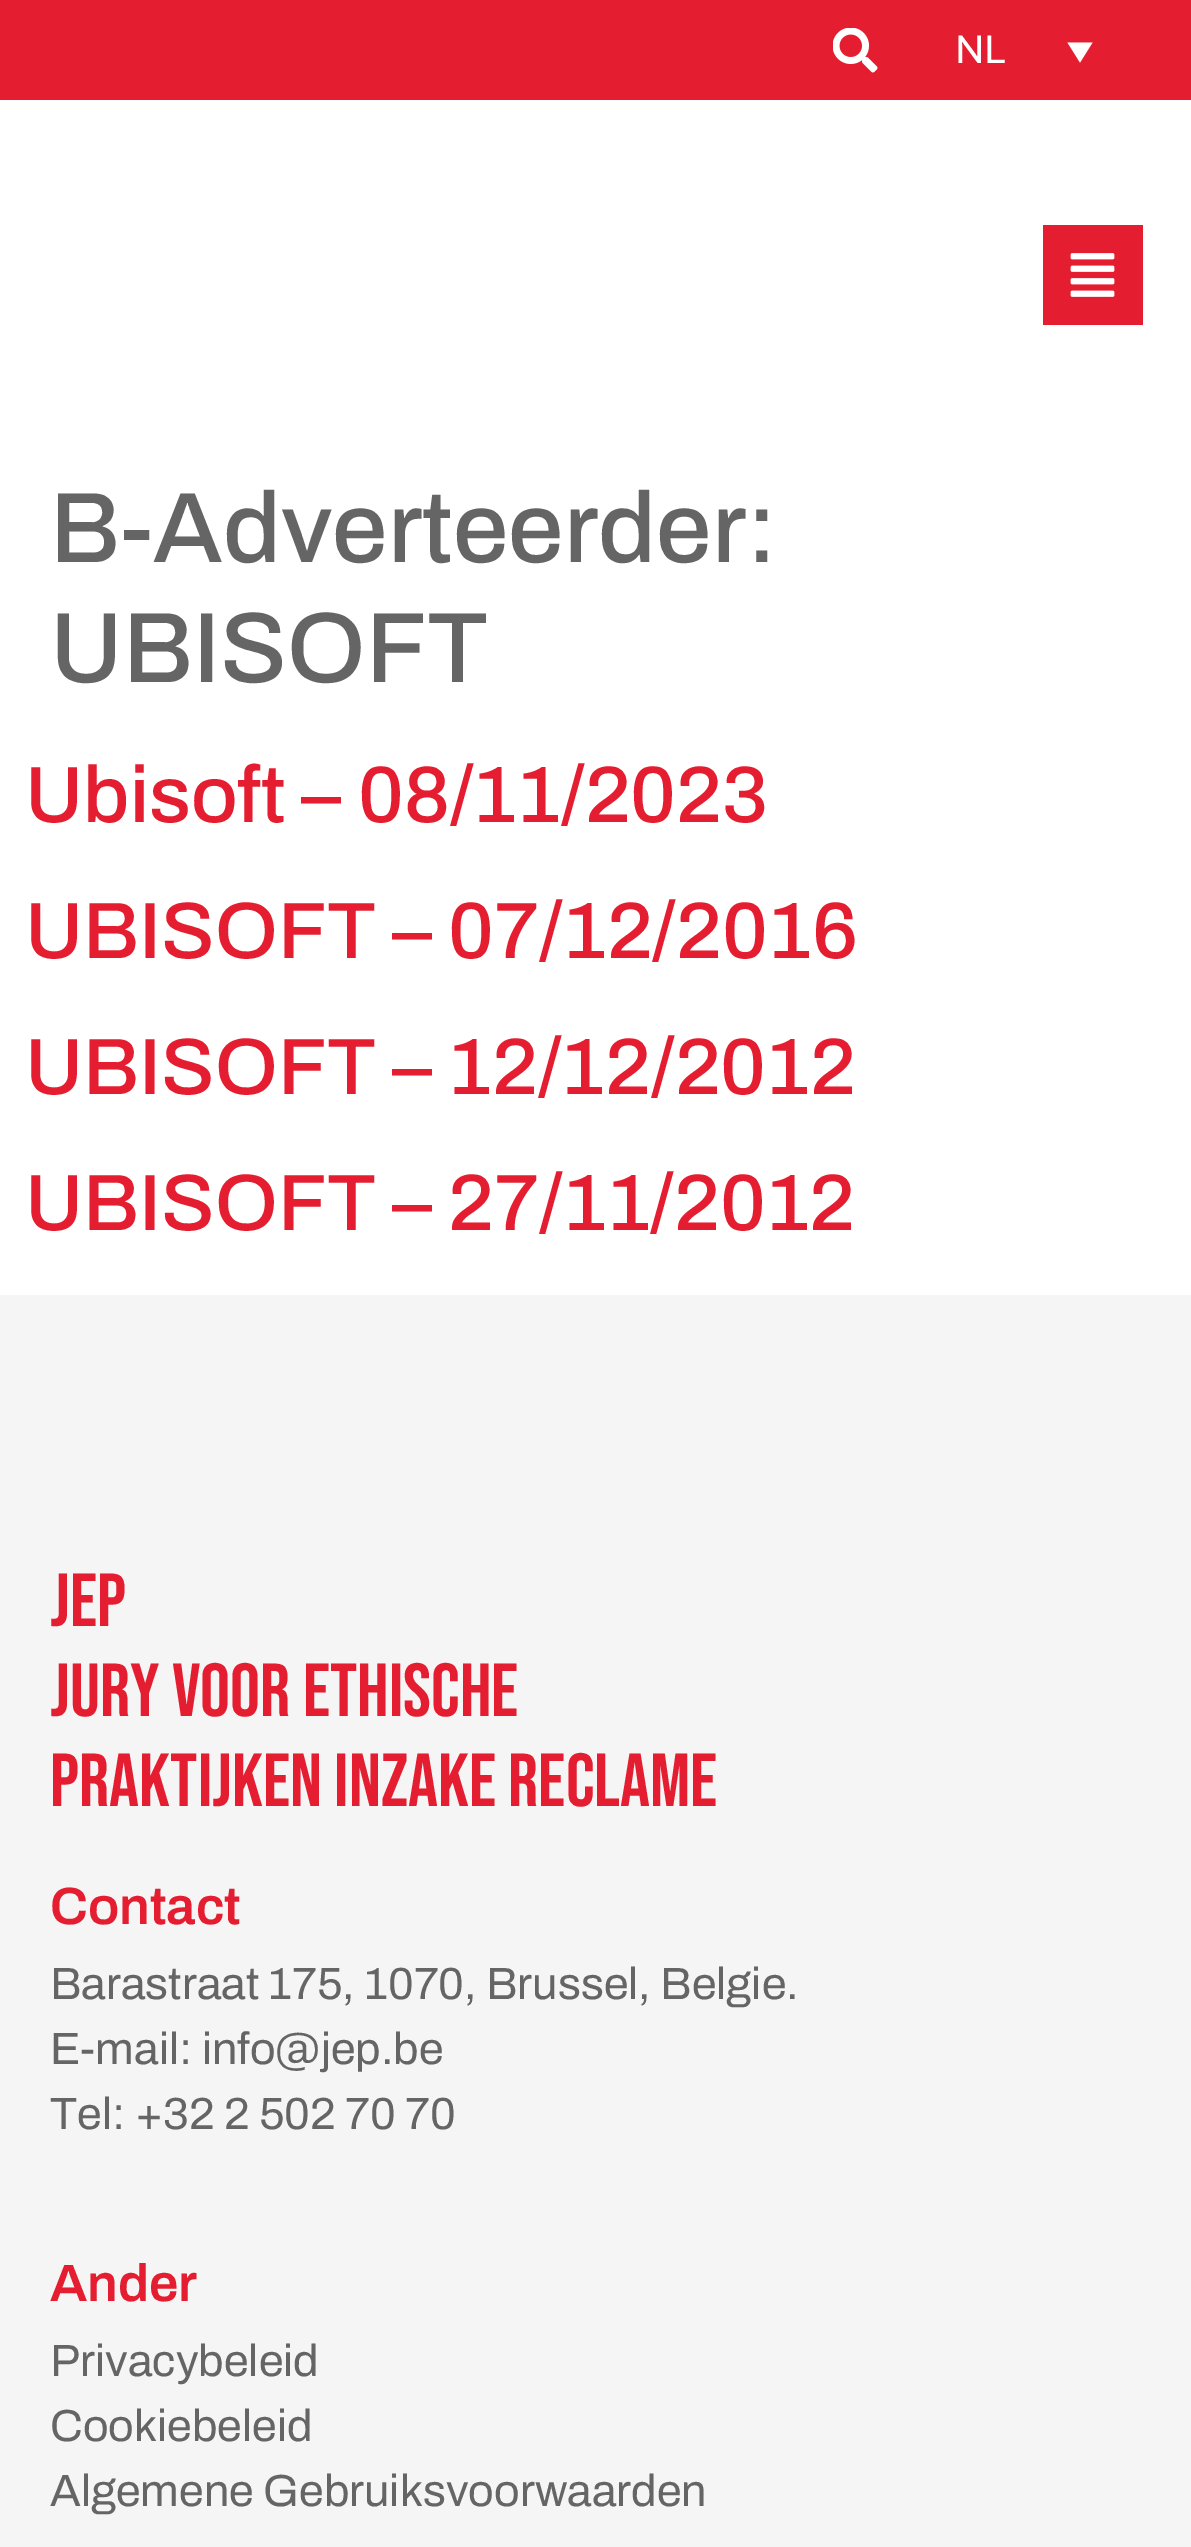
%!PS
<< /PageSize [1191 2547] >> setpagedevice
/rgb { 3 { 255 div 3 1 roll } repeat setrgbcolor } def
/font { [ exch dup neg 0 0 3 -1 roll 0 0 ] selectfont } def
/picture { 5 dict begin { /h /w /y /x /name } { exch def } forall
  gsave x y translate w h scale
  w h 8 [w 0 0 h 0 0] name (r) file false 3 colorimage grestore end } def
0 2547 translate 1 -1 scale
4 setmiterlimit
255 255 255 rgb
0 0 1191 2547 rectfill
228 30 48 rgb
0 0 1191 100 rectfill
(img/1.rgb) 833 28 45 45 picture
255 255 255 rgb
1067.5 42.5 moveto 1092.5 42.5 lineto 1080 62.5 lineto closepath fill
228 30 48 rgb
1043 225 100 100 rectfill
(img/2.rgb) 1070 253 45 44 picture
245 245 245 rgb
0 1295 1191 1252 rectfill
/Archivo-Regular 40 font
255 255 255 rgb
955 63 moveto (NL) show
/Archivo-Medium 100 font
101 101 101 rgb
50 562 moveto (B-Adverteerder:) show
50 682 moveto (UBISOFT) show
/Archivo-Medium 80 font
228 30 48 rgb
[
  [(Ubisoft – 08/11/2023) 25 822]
  [(UBISOFT – 07/12/2016) 25 958]
  [(UBISOFT – 12/12/2012) 25 1094]
  [(UBISOFT – 27/11/2012) 25 1230]
] { aload pop moveto show } forall
/BebasNeue-Regular 75 font
[
  [(JEP) 50 1626]
  [(JURY VOOR ETHISCHE) 50 1716]
  [(PRAKTIJKEN INZAKE RECLAME) 50 1806]
] { aload pop moveto show } forall
/Archivo-SemiBold 52.5 font
50 1924 moveto (Contact) show
/Archivo-Regular 45 font
101 101 101 rgb
[
  [(Barastraat 175, 1070, Brussel, Belgie.) 50 1999]
  [(E-mail: info@jep.be) 50 2064]
  [(Tel: +32 2 502 70 70) 50 2129]
] { aload pop moveto show } forall
/Archivo-SemiBold 52.5 font
228 30 48 rgb
50 2301 moveto (Ander) show
/Archivo-Regular 45 font
101 101 101 rgb
[
  [(Privacybeleid) 50 2376]
  [(Cookiebeleid) 50 2441]
  [(Algemene Gebruiksvoorwaarden) 50 2506]
] { aload pop moveto show } forall
showpage
